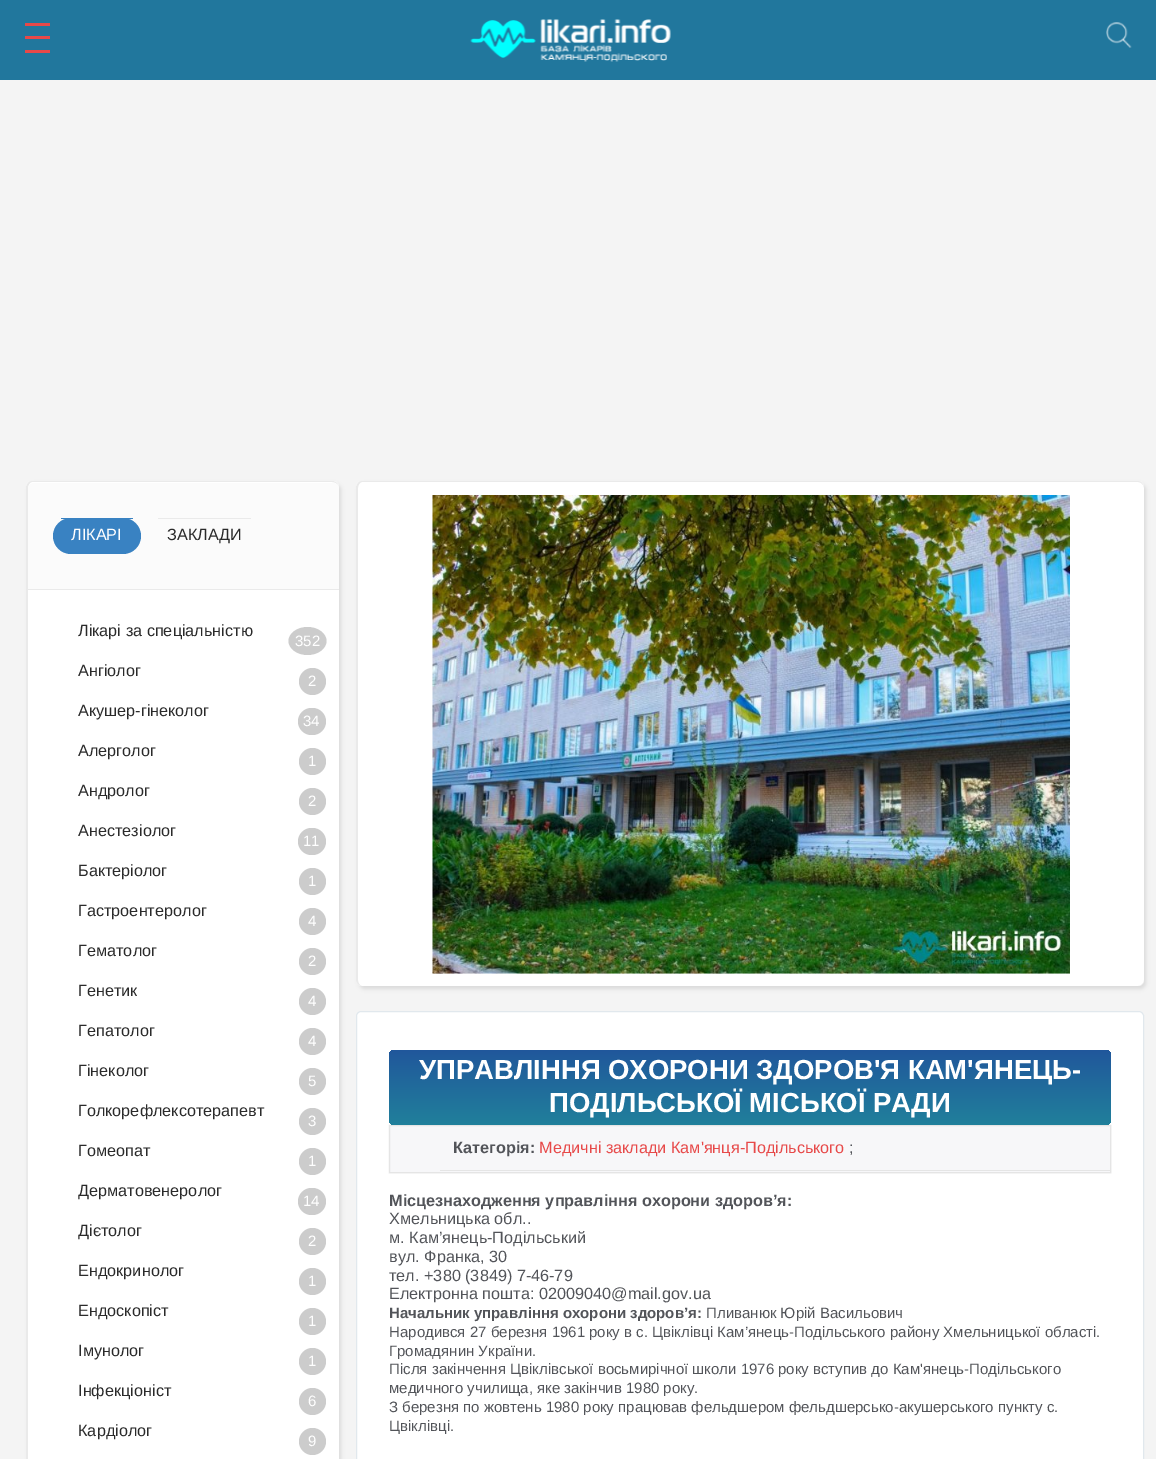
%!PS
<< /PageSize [1156 1459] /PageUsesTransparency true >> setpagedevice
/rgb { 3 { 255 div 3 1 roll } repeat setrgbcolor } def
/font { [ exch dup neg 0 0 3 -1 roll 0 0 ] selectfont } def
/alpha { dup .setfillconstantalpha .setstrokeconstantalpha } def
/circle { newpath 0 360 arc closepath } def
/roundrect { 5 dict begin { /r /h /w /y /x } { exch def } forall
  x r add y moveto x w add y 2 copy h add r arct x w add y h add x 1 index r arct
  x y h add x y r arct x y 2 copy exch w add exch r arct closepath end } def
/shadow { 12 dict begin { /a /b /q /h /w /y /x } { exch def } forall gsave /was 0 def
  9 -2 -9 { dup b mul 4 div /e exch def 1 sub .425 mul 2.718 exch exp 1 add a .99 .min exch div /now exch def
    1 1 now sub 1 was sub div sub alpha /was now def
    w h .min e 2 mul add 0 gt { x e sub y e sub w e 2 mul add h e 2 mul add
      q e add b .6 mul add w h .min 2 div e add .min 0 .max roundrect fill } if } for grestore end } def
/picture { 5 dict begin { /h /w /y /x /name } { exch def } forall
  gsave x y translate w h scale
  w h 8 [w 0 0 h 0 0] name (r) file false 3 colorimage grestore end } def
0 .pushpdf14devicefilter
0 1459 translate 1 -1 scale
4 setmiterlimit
244 244 244 rgb
0 0 1156 1459 rectfill
[
  [0 0 1156 80 33 119 157]
  [25 23 25 3 231 73 73]
  [25 50 25 3 231 73 73]
  [25 36 25 3 231 73 73]
] { aload pop rgb rectfill } forall
(img/1.rgb) 470 19 201 43 picture
(img/2.rgb) 1106 22 26 26 picture
0 0 0 rgb
29 484 312 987 6 2 0.1 shadow
255 255 255 rgb
26 481 313 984 6 roundrect fill
234 234 234 rgb
32 481 moveto 332 481 lineto 336 481 339 484 339 488 curveto 339 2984 lineto 339 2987 336 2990 332 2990 curveto 32 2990 lineto 29 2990 26 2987 26 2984 curveto 26 488 lineto 26 484 29 481 32 481 curveto closepath 32 482 moveto 332 482 lineto 336 482 339 485 339 488 curveto 339 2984 lineto 339 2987 336 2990 332 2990 curveto 32 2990 lineto 30 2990 28 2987 28 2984 curveto 28 488 lineto 28 485 30 482 32 482 curveto closepath eofill
251 251 251 rgb
34 483 moveto 333 483 lineto 336.5 483 339 485.5 339 489 curveto 339 590 lineto 28 590 lineto 28 489 lineto 28 485.5 30.5 483 34 483 curveto closepath fill
234 234 234 rgb
28 589 311 1 rectfill
57 130 194 rgb
53 518 88 36 18 roundrect fill
61 518 72 1 rectfill
234 234 234 rgb
158 518 93 1 rectfill
204 204 204 rgb
307.5 627 moveto 318 627 326.5 633.5 326.5 641 curveto 326.5 648.5 318 655 307.5 655 curveto 297 655 288.5 648.5 288.5 641 curveto 288.5 633.5 297 627 307.5 627 curveto closepath fill
312.5 681.5 13.5 circle fill
298 708 28 27 13.5 roundrect fill
312.5 761.5 13.5 circle fill
312.5 801.5 13.5 circle fill
298 828 28 27 13.5 roundrect fill
312.5 881.5 13.5 circle fill
312.5 921.5 13.5 circle fill
312.5 961.5 13.5 circle fill
312.5 1001.5 13.5 circle fill
312.5 1041.5 13.5 circle fill
312.5 1081.5 13.5 circle fill
312.5 1121.5 13.5 circle fill
312.5 1161.5 13.5 circle fill
298 1188 28 27 13.5 roundrect fill
312.5 1241.5 13.5 circle fill
312.5 1281.5 13.5 circle fill
312.5 1321.5 13.5 circle fill
312.5 1361.5 13.5 circle fill
312.5 1401.5 13.5 circle fill
312.5 1441.5 13.5 circle fill
0 0 0 rgb
359 484 787 505 6 2 0.1 shadow
255 255 255 rgb
356 481 788 505 6 roundrect fill
234 234 234 rgb
362 481 moveto 1138 481 lineto 1141 481 1144 484 1144 488 curveto 1144 980 lineto 1144 983 1141 986 1138 986 curveto 362 986 lineto 359 986 356 983 356 980 curveto 356 488 lineto 356 484 359 481 362 481 curveto closepath 362 482 moveto 1138 482 lineto 1141 482 1144 485 1144 488 curveto 1144 980 lineto 1144 983 1141 986 1138 986 curveto 362 986 lineto 360 986 358 983 358 980 curveto 358 488 lineto 358 485 360 482 362 482 curveto closepath eofill
(img/3.rgb) 432 495 638 479 picture
255 255 255 rgb
356.5 1011.5 787 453 4.5 roundrect gsave fill grestore
225 232 237 rgb
stroke
230 230 230 rgb
389 1125 722 48 0 0.5 1 shadow
gsave 389 1050 722 75 5 roundrect clip newpath
<< /ShadingType 2 /ColorSpace /DeviceRGB /Coords [750 1050 750 1125] /Extend [true true] /Function << /FunctionType 2 /Domain [0 1] /C0 [0.125 0.341 0.608] /C1 [0.125 0.502 0.608] /N 1 >> >> shfill grestore
247 247 249 rgb
389.5 1125.5 moveto 1110.5 1125.5 lineto 1110.5 1172.5 lineto 389.5 1172.5 lineto closepath gsave fill grestore
229 229 229 rgb
stroke
440 1170 670 1 rectfill
/LiberationSans-Regular 16.25 font
255 255 255 rgb
71 540 moveto (ЛІКАРІ) show
42 42 42 rgb
167 540 moveto (ЗАКЛАДИ) show
78 636 moveto (Лікарі за спеціальністю) show
/LiberationSans-Regular 15 font
255 255 255 rgb
295 646 moveto (352) show
/LiberationSans-Regular 16.25 font
42 42 42 rgb
78 676 moveto (Ангіолог) show
/LiberationSans-Regular 15 font
255 255 255 rgb
308 686 moveto (2) show
/LiberationSans-Regular 16.25 font
42 42 42 rgb
78 716 moveto (Акушер-гінеколог) show
/LiberationSans-Regular 15 font
255 255 255 rgb
303 726 moveto (34) show
/LiberationSans-Regular 16.25 font
42 42 42 rgb
78 756 moveto (Алерголог) show
/LiberationSans-Regular 15 font
255 255 255 rgb
308 766 moveto (1) show
/LiberationSans-Regular 16.25 font
42 42 42 rgb
78 796 moveto (Андролог) show
/LiberationSans-Regular 15 font
255 255 255 rgb
308 806 moveto (2) show
/LiberationSans-Regular 16.25 font
42 42 42 rgb
78 836 moveto (Анестезіолог) show
/LiberationSans-Regular 15 font
255 255 255 rgb
303 846 moveto (11) show
/LiberationSans-Regular 16.25 font
42 42 42 rgb
78 876 moveto (Бактеріолог) show
/LiberationSans-Regular 15 font
255 255 255 rgb
308 886 moveto (1) show
/LiberationSans-Regular 16.25 font
42 42 42 rgb
78 916 moveto (Гастроентеролог) show
/LiberationSans-Regular 15 font
255 255 255 rgb
308 926 moveto (4) show
/LiberationSans-Regular 16.25 font
42 42 42 rgb
78 956 moveto (Гематолог) show
/LiberationSans-Regular 15 font
255 255 255 rgb
308 966 moveto (2) show
/LiberationSans-Regular 16.25 font
42 42 42 rgb
78 996 moveto (Генетик) show
/LiberationSans-Regular 15 font
255 255 255 rgb
308 1006 moveto (4) show
/LiberationSans-Regular 16.25 font
42 42 42 rgb
78 1036 moveto (Гепатолог) show
/LiberationSans-Regular 15 font
255 255 255 rgb
308 1046 moveto (4) show
/LiberationSans-Regular 16.25 font
42 42 42 rgb
78 1076 moveto (Гінеколог) show
/LiberationSans-Regular 15 font
255 255 255 rgb
308 1086 moveto (5) show
/LiberationSans-Regular 16.25 font
42 42 42 rgb
78 1116 moveto (Голкорефлексотерапевт) show
/LiberationSans-Regular 15 font
255 255 255 rgb
308 1126 moveto (3) show
/LiberationSans-Regular 16.25 font
42 42 42 rgb
78 1156 moveto (Гомеопат) show
/LiberationSans-Regular 15 font
255 255 255 rgb
308 1166 moveto (1) show
/LiberationSans-Regular 16.25 font
42 42 42 rgb
78 1196 moveto (Дерматовенеролог) show
/LiberationSans-Regular 15 font
255 255 255 rgb
303 1206 moveto (14) show
/LiberationSans-Regular 16.25 font
42 42 42 rgb
78 1236 moveto (Дієтолог) show
/LiberationSans-Regular 15 font
255 255 255 rgb
308 1246 moveto (2) show
/LiberationSans-Regular 16.25 font
42 42 42 rgb
78 1276 moveto (Ендокринолог) show
/LiberationSans-Regular 15 font
255 255 255 rgb
308 1286 moveto (1) show
/LiberationSans-Regular 16.25 font
42 42 42 rgb
78 1316 moveto (Ендоскопіст) show
/LiberationSans-Regular 15 font
255 255 255 rgb
308 1326 moveto (1) show
/LiberationSans-Regular 16.25 font
42 42 42 rgb
78 1356 moveto (Імунолог) show
/LiberationSans-Regular 15 font
255 255 255 rgb
308 1366 moveto (1) show
/LiberationSans-Regular 16.25 font
42 42 42 rgb
78 1396 moveto (Інфекціоніст) show
/LiberationSans-Regular 15 font
255 255 255 rgb
308 1406 moveto (6) show
/LiberationSans-Regular 16.25 font
42 42 42 rgb
78 1436 moveto (Кардіолог) show
/LiberationSans-Regular 15 font
255 255 255 rgb
308 1446 moveto (9) show
/LiberationSans-Bold 27.5 font
419 1079 moveto (УПРАВЛІННЯ ОХОРОНИ ЗДОРОВ'Я КАМ'ЯНЕЦЬ-) show
549 1112 moveto (ПОДІЛЬСЬКОЇ МІСЬКОЇ РАДИ) show
/LiberationSans-Bold 16.25 font
82 84 89 rgb
453 1153 moveto (Категорія:) show
/LiberationSans-Regular 16.25 font
231 73 73 rgb
539 1153 moveto (Медичні заклади Кам'янця-Подільського) show
82 84 89 rgb
849 1153 moveto (;) show
/LiberationSans-Bold 16.25 font
389 1206 moveto (Місцезнаходження управління охорони здоров’я:) show
/LiberationSans-Regular 16.25 font
[
  [(Хмельницька обл..) 389 1224]
  [(м. Кам’янець-Подільський) 389 1243]
  [(вул. Франка, 30) 389 1262]
  [(тел. +380 \(3849\) 7-46-79) 389 1281]
  [(Електронна пошта: 02009040@mail.gov.ua) 389 1299]
] { aload pop moveto show } forall
/LiberationSans-Bold 15 font
389 1318 moveto (Начальник управління охорони здоров’я:) show
/LiberationSans-Regular 15 font
[
  [(Пливанюк Юрій Васильович) 706 1318]
  [(Народився 27 березня 1961 року в с. Цвіклівці Кам’янець-Подільського району Хмельницької області.) 389 1337]
  [(Громадянин України.) 389 1356]
  [(Після закінчення Цвіклівської восьмирічної школи 1976 року вступив до Кам'янець-Подільського) 389 1374]
  [(медичного училища, яке закінчив 1980 року.) 389 1393]
  [(З березня по жовтень 1980 року працював фельдшером фельдшерсько-акушерського пункту с.) 389 1412]
  [(Цвіклівці.) 389 1431]
] { aload pop moveto show } forall
.poppdf14devicefilter showpage
